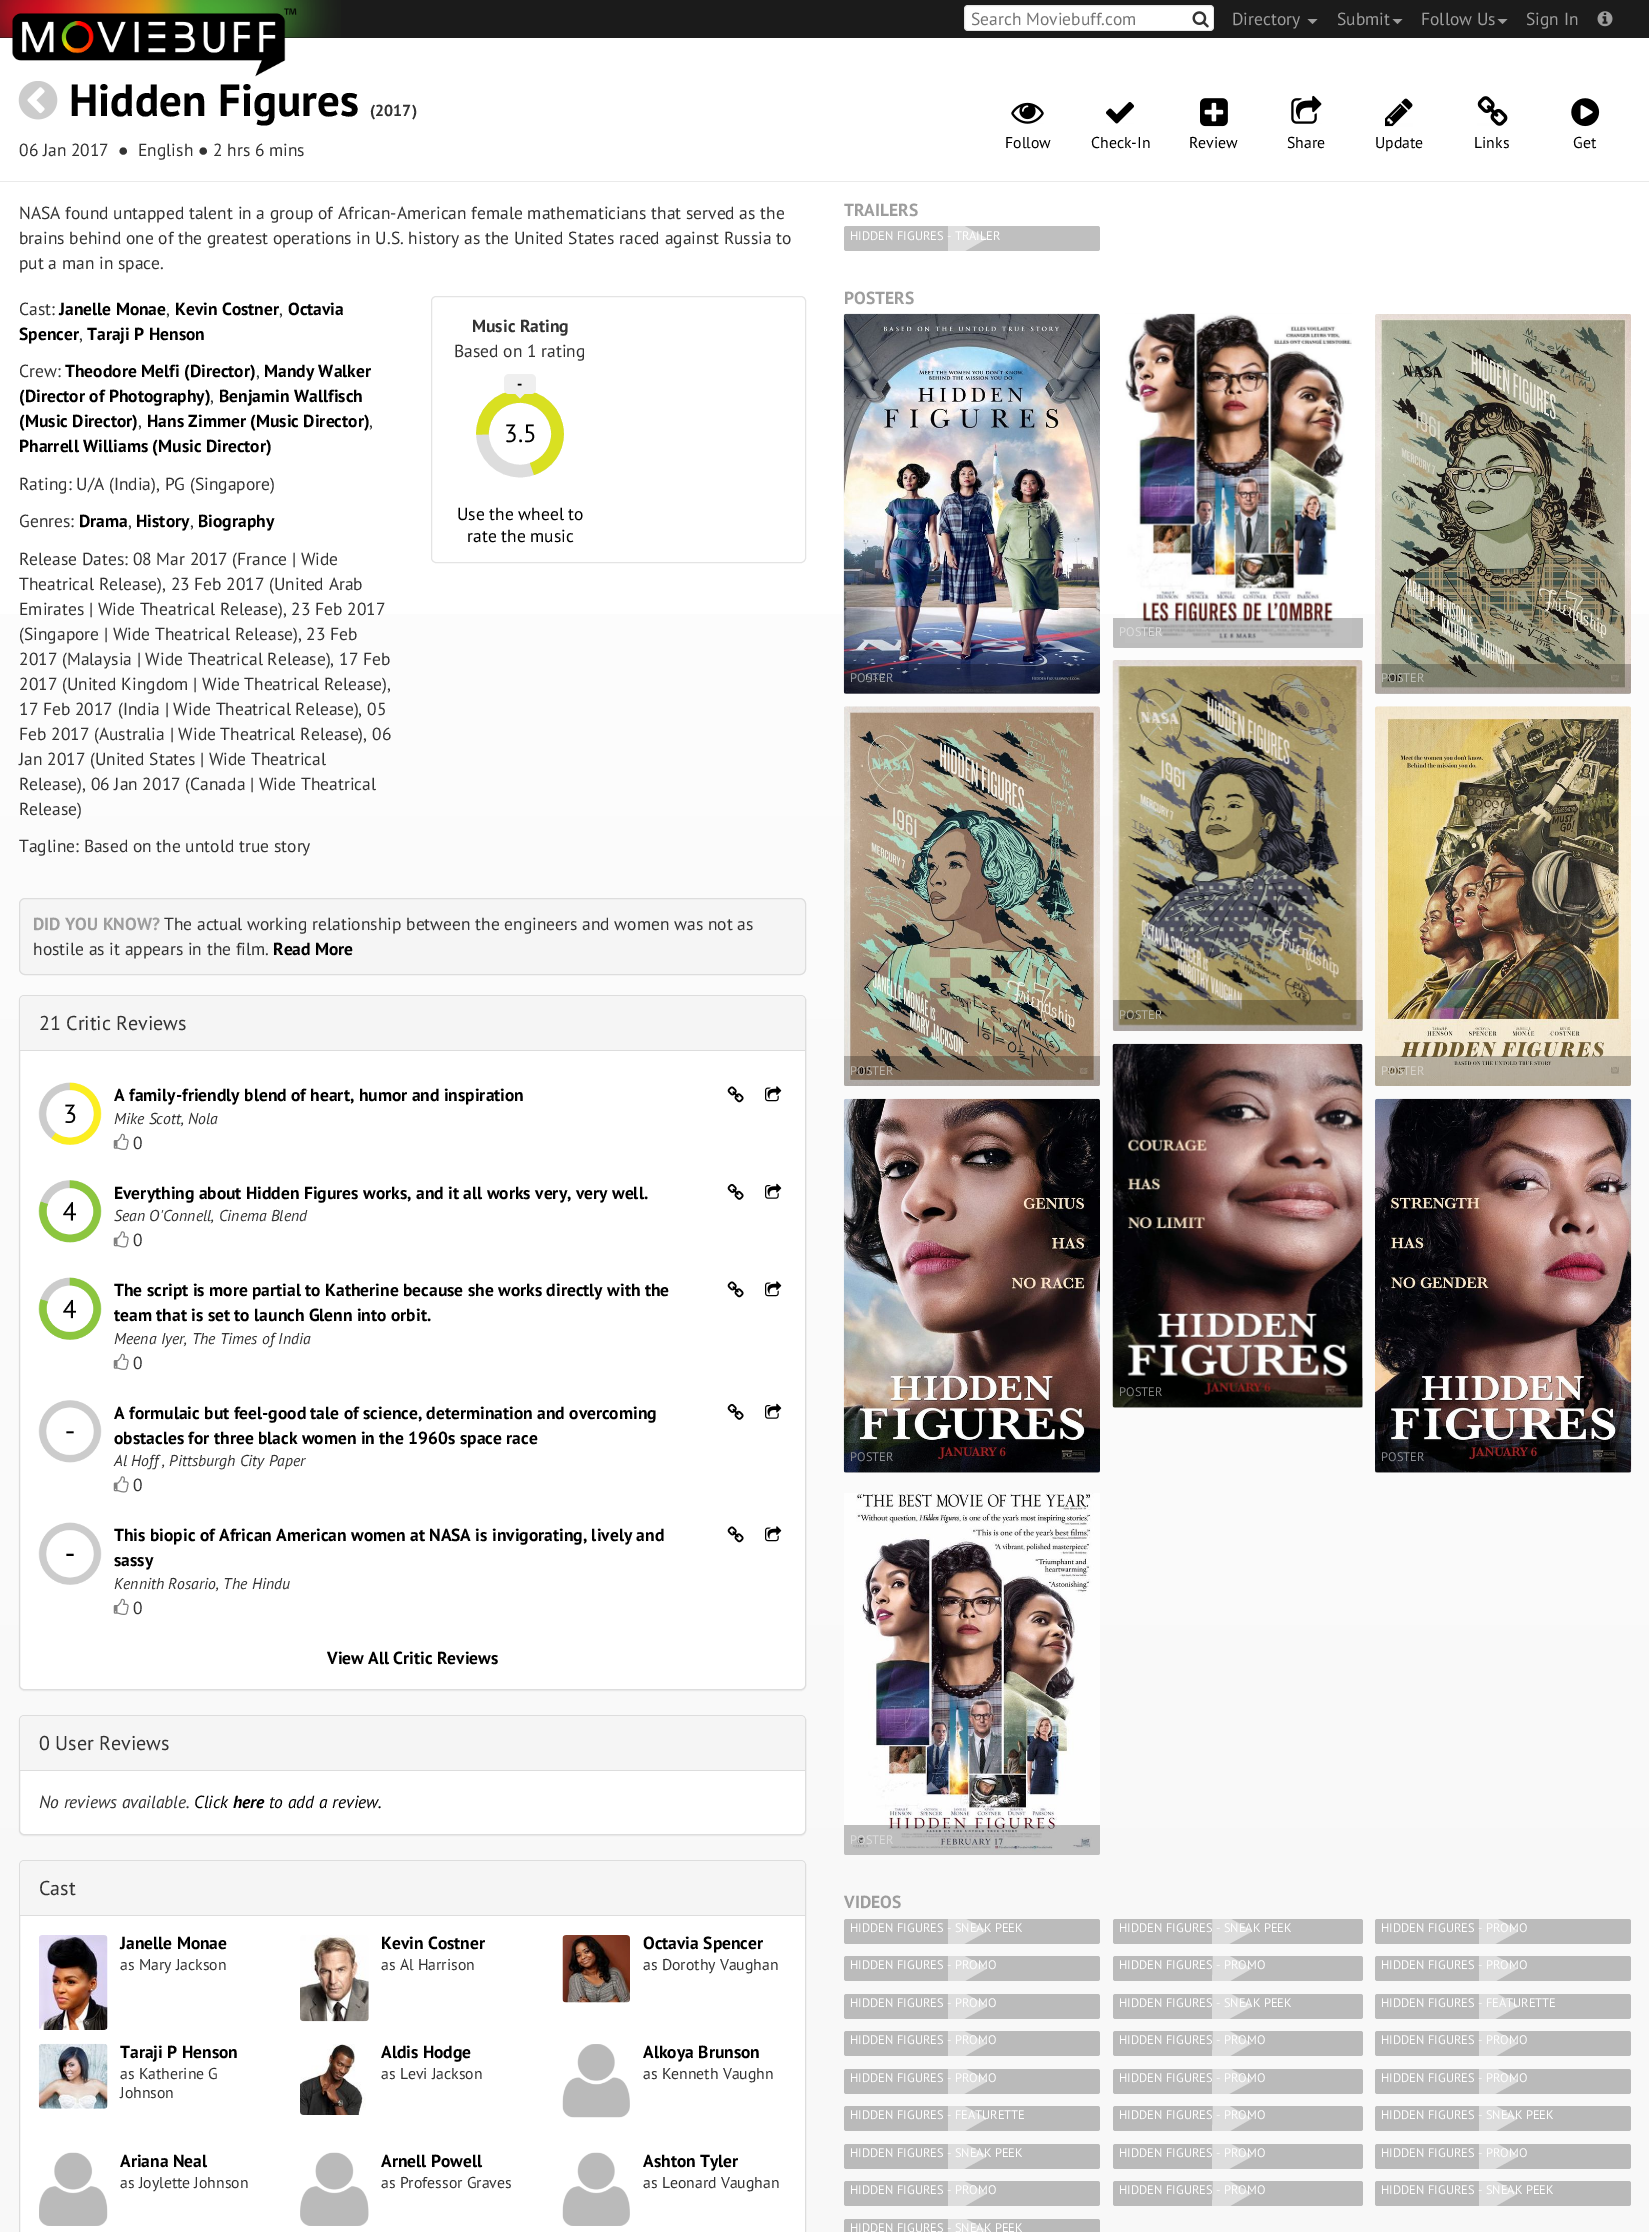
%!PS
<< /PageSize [1649 2232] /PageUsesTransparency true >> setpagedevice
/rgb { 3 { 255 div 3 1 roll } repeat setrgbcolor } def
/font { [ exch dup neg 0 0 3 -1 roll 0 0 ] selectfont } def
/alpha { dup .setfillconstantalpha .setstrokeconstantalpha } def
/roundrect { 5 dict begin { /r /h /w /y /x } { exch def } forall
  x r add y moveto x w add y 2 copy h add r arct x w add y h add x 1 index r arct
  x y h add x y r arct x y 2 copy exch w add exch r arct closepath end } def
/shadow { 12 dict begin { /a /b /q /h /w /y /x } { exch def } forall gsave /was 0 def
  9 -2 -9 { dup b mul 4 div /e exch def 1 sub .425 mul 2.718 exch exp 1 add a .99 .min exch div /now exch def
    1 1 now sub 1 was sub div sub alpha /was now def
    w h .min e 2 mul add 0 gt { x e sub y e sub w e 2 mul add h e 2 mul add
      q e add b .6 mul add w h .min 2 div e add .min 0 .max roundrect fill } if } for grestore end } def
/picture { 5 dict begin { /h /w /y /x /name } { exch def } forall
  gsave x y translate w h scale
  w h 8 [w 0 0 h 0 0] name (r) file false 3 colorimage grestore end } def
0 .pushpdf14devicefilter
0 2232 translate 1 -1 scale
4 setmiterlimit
255 255 255 rgb
0 0 1649 2232 rectfill
gsave 0 614 moveto 1649 614 lineto 1649 2232 lineto 0 2232 lineto closepath clip newpath
<< /ShadingType 2 /ColorSpace /DeviceRGB /Coords [825 0 825 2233] /Extend [true true] /Function << /FunctionType 3 /Domain [0 1] /Functions [<< /FunctionType 2 /Domain [0 1] /C0 [1 1 1] /C1 [0.988 0.988 0.988] /N 1 >> << /FunctionType 2 /Domain [0 1] /C0 [0.988 0.988 0.988] /C1 [0.98 0.98 0.98] /N 1 >> << /FunctionType 2 /Domain [0 1] /C0 [0.98 0.98 0.98] /C1 [0.973 0.973 0.973] /N 1 >>] /Bounds [0.33 0.67] /Encode [0 1 0 1 0 1] >> >> shfill grestore
27 27 27 rgb
0 0 1649 38 rectfill
(img/1.rgb) 0 0 341 38 picture
(img/2.rgb) 12 8 285 69 picture
255 255 255 rgb
964 5 250 26 4 roundrect fill
0.1 alpha
0 0 0 rgb
964.5 5.5 249 25 3.5 roundrect stroke
1 alpha
(img/3.rgb) 1192 11 17 17 picture
157 157 157 rgb
1307.5 19 moveto 1317.5 19 lineto 1312.5 24 lineto closepath fill
1392.5 19 moveto 1402.5 19 lineto 1397.5 24 lineto closepath fill
1497.5 19 moveto 1507.5 19 lineto 1502.5 24 lineto closepath fill
(img/4.rgb) 1597 11 16 16 picture
(img/5.rgb) 18 81 40 39 picture
(img/6.rgb) 1011 102 33 22 picture
(img/7.rgb) 1106 102 28 22 picture
(img/8.rgb) 1200 98 28 29 picture
(img/9.rgb) 1291 95 31 29 picture
(img/10.rgb) 1385 98 28 29 picture
(img/11.rgb) 1477 96 31 30 picture
(img/12.rgb) 1571 98 29 29 picture
234 234 234 rgb
0 181 1649 1 rectfill
228 228 228 rgb
431.5 296.5 374 266 4.5 roundrect stroke
221 221 221 rgb
12.5 setlinewidth
482.5 434.5 moveto 482 413.5 498.5 396.5 519.5 396.5 curveto 540 396 557 412.5 557.5 433 curveto 558 454 541.5 471 520.5 471 curveto 500 471.5 483 455 482.5 434.5 curveto closepath stroke
217 224 33 rgb
482.5 434.5 moveto 482 413.5 498.5 396.5 519.5 396.5 curveto 540 396 557 412.5 557.5 433 curveto 558 450 547 464 532 469 curveto stroke
239 239 239 rgb
520 388 moveto 525.5 393 lineto 520 398.5 lineto 514.5 393 lineto closepath fill
504 374 32 20 5 roundrect fill
245 245 245 rgb
19.5 898.5 786 76 5.5 roundrect gsave fill grestore
221 221 221 rgb
1 setlinewidth
stroke
0 0 0 rgb
19 996 787 695 5 0.5 0.05 shadow
255 255 255 rgb
19.5 995.5 786 694 4.5 roundrect gsave fill grestore
221 221 221 rgb
stroke
245 245 245 rgb
24 996 moveto 801 996 lineto 803 996 805 998 805 1000 curveto 805 1051 lineto 20 1051 lineto 20 1000 lineto 20 998 22 996 24 996 curveto closepath fill
221 221 221 rgb
20 1050 785 1 rectfill
(img/13.rgb) 38 1082 64 63 picture
(img/14.rgb) 113 1133 16 17 picture
(img/15.rgb) 727 1086 17 17 picture
(img/16.rgb) 765 1086 17 16 picture
(img/17.rgb) 38 1180 64 63 picture
(img/18.rgb) 113 1231 16 17 picture
(img/19.rgb) 727 1183 17 17 picture
(img/20.rgb) 765 1183 17 16 picture
(img/21.rgb) 38 1277 64 63 picture
(img/14.rgb) 113 1353 16 17 picture
(img/15.rgb) 727 1281 17 17 picture
(img/16.rgb) 765 1281 17 16 picture
(img/22.rgb) 38 1400 64 63 picture
(img/18.rgb) 113 1476 16 17 picture
(img/19.rgb) 727 1403 17 17 picture
(img/20.rgb) 765 1403 17 16 picture
(img/23.rgb) 38 1522 64 63 picture
(img/14.rgb) 113 1598 16 17 picture
(img/15.rgb) 727 1526 17 17 picture
(img/16.rgb) 765 1526 17 16 picture
0 0 0 rgb
19 1716 787 120 5 0.5 0.05 shadow
255 255 255 rgb
19.5 1715.5 786 119 4.5 roundrect gsave fill grestore
221 221 221 rgb
stroke
245 245 245 rgb
24 1716 moveto 801 1716 lineto 803 1716 805 1718 805 1720 curveto 805 1771 lineto 20 1771 lineto 20 1720 lineto 20 1718 22 1716 24 1716 curveto closepath fill
221 221 221 rgb
20 1770 785 1 rectfill
255 255 255 rgb
19.5 1860.5 786 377 4.5 roundrect gsave fill grestore
221 221 221 rgb
stroke
245 245 245 rgb
24 1861 moveto 801 1861 lineto 803 1861 805 1863 805 1865 curveto 805 1916 lineto 20 1916 lineto 20 1865 lineto 20 1863 22 1861 24 1861 curveto closepath fill
221 221 221 rgb
20 1915 785 1 rectfill
(img/24.rgb) 39 1935 69 95 picture
(img/25.rgb) 300 1935 69 87 picture
(img/26.rgb) 562 1935 68 68 picture
(img/27.rgb) 38 2043 70 66 picture
(img/28.rgb) 300 2044 66 71 picture
(img/29.rgb) 562 2044 68 74 picture
(img/30.rgb) 39 2152 69 74 picture
(img/31.rgb) 300 2152 69 74 picture
(img/32.rgb) 562 2152 68 74 picture
191 191 191 rgb
844 226 256 25 2.5 roundrect fill
(img/33.rgb) 843 313 257 381 picture
0.25 alpha
0 0 0 rgb
844 664 moveto 1100 664 lineto 1100 691.5 lineto 1100 693 1099 694 1097.5 694 curveto 846.5 694 lineto 845 694 844 693 844 691.5 curveto closepath fill
1 alpha
(img/34.rgb) 844 706 256 380 picture
0.25 alpha
844 1056 moveto 1100 1056 lineto 1100 1083.5 lineto 1100 1085 1099 1086 1097.5 1086 curveto 846.5 1086 lineto 845 1086 844 1085 844 1083.5 curveto closepath fill
1 alpha
(img/35.rgb) 843 1098 257 375 picture
0.25 alpha
844 1443 moveto 1100 1443 lineto 1100 1470.5 lineto 1100 1472 1099 1473 1097.5 1473 curveto 846.5 1473 lineto 845 1473 844 1472 844 1470.5 curveto closepath fill
1 alpha
(img/36.rgb) 844 1493 256 362 picture
0.25 alpha
844 1825 moveto 1100 1825 lineto 1100 1852.5 lineto 1100 1854 1099 1855 1097.5 1855 curveto 846.5 1855 lineto 845 1855 844 1854 844 1852.5 curveto closepath fill
1 alpha
(img/37.rgb) 1125 313 227 330 picture
0.25 alpha
1113 618 moveto 1363 618 lineto 1363 645.5 lineto 1363 647 1362 648 1360.5 648 curveto 1115.5 648 lineto 1114 648 1113 647 1113 645.5 curveto closepath fill
1 alpha
(img/38.rgb) 1112 660 251 371 picture
0.25 alpha
1113 1000 moveto 1363 1000 lineto 1363 1028.5 lineto 1363 1030 1362 1031 1360.5 1031 curveto 1115.5 1031 lineto 1114 1031 1113 1030 1113 1028.5 curveto closepath fill
1 alpha
(img/39.rgb) 1112 1043 251 365 picture
0.25 alpha
1113 1378 moveto 1363 1378 lineto 1363 1405.5 lineto 1363 1407 1362 1408 1360.5 1408 curveto 1115.5 1408 lineto 1114 1408 1113 1407 1113 1405.5 curveto closepath fill
1 alpha
(img/40.rgb) 1375 314 256 380 picture
0.25 alpha
1375 664 moveto 1631 664 lineto 1631 691.5 lineto 1631 693 1630 694 1628.5 694 curveto 1377.5 694 lineto 1376 694 1375 693 1375 691.5 curveto closepath fill
1 alpha
(img/41.rgb) 1375 706 256 380 picture
0.25 alpha
1375 1056 moveto 1631 1056 lineto 1631 1083.5 lineto 1631 1085 1630 1086 1628.5 1086 curveto 1377.5 1086 lineto 1376 1086 1375 1085 1375 1083.5 curveto closepath fill
1 alpha
(img/42.rgb) 1375 1098 257 375 picture
0.25 alpha
1375 1443 moveto 1631 1443 lineto 1631 1470.5 lineto 1631 1472 1630 1473 1628.5 1473 curveto 1377.5 1473 lineto 1376 1473 1375 1472 1375 1470.5 curveto closepath fill
1 alpha
187 187 187 rgb
844 1919 256 25 2.5 roundrect fill
844 1956 256 25 2.5 roundrect fill
844 1994 256 25 2.5 roundrect fill
186 186 186 rgb
844 2031 256 25 2.5 roundrect fill
844 2069 256 25 2.5 roundrect fill
844 2106 256 25 2.5 roundrect fill
844 2144 256 25 2.5 roundrect fill
844 2181 256 25 2.5 roundrect fill
844 2219 256 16 2.5 roundrect fill
187 187 187 rgb
1113 1919 250 25 2.5 roundrect fill
1113 1956 250 25 2.5 roundrect fill
1113 1994 250 25 2.5 roundrect fill
186 186 186 rgb
1113 2031 250 25 2.5 roundrect fill
1113 2069 250 25 2.5 roundrect fill
1113 2106 250 25 2.5 roundrect fill
1113 2144 250 25 2.5 roundrect fill
1113 2181 250 25 2.5 roundrect fill
187 187 187 rgb
1375 1919 256 25 2.5 roundrect fill
1375 1956 256 25 2.5 roundrect fill
1375 1994 256 25 2.5 roundrect fill
186 186 186 rgb
1375 2031 256 25 2.5 roundrect fill
1375 2069 256 25 2.5 roundrect fill
1375 2106 256 25 2.5 roundrect fill
1375 2144 256 25 2.5 roundrect fill
1375 2181 256 25 2.5 roundrect fill
/PTSans-Regular 17.5 font
117 117 117 rgb
971 25 moveto (Search Moviebuff.com) show
157 157 157 rgb
[
  [(Directory) 1232 25]
  [(Submit) 1337 25]
  [(Follow Us) 1421 25]
  [(Sign In) 1526 25]
] { aload pop moveto show } forall
/PTSans-Bold 45 font
0 0 0 rgb
69 116 moveto (Hidden Figures) show
/PTSans-Bold 16 font
51 51 51 rgb
370 116 moveto (\(2017\)) show
/PTSans-Regular 17.5 font
19 156 moveto (06 Jan 2017) show
/LiberationSerif-Regular 17.5 font
118 156 moveto (●) show
/PTSans-Regular 17.5 font
138 156 moveto (English) show
/LiberationSerif-Regular 17.5 font
198 156 moveto (●) show
/PTSans-Regular 17.5 font
213 156 moveto (2 hrs 6 mins) show
/PTSans-Regular 15.75 font
0 0 0 rgb
[
  [(Follow) 1005 148]
  [(Check-In) 1091 148]
  [(Review) 1189 148]
  [(Share) 1287 148]
  [(Update) 1375 148]
  [(Links) 1474 148]
  [(Get) 1573 148]
] { aload pop moveto show } forall
/PTSans-Regular 17.5 font
51 51 51 rgb
[
  [(NASA found untapped talent in a group of African-American female mathematicians that served as the) 19 219]
  [(brains behind one of the greatest operations in U.S. history as the United States raced against Russia to) 19 244]
  [(put a man in space.) 19 269]
  [(Cast:) 19 315]
] { aload pop moveto show } forall
/PTSans-Bold 17.5 font
0 0 0 rgb
59 315 moveto (Janelle Monae) show
/PTSans-Regular 17.5 font
51 51 51 rgb
166 315 moveto (,) show
/PTSans-Bold 17.5 font
0 0 0 rgb
175 315 moveto (Kevin Costner) show
/PTSans-Regular 17.5 font
51 51 51 rgb
279 315 moveto (,) show
/PTSans-Bold 17.5 font
0 0 0 rgb
288 315 moveto (Octavia) show
19 340 moveto (Spencer) show
/PTSans-Regular 17.5 font
51 51 51 rgb
79 340 moveto (,) show
/PTSans-Bold 17.5 font
0 0 0 rgb
87 340 moveto (Taraji P Henson) show
/PTSans-Regular 17.5 font
51 51 51 rgb
19 377 moveto (Crew:) show
/PTSans-Bold 17.5 font
0 0 0 rgb
65 377 moveto (Theodore Melfi \(Director\)) show
/PTSans-Regular 17.5 font
51 51 51 rgb
256 377 moveto (,) show
/PTSans-Bold 17.5 font
0 0 0 rgb
264 377 moveto (Mandy Walker) show
19 402 moveto (\(Director of Photography\)) show
/PTSans-Regular 17.5 font
51 51 51 rgb
210 402 moveto (,) show
/PTSans-Bold 17.5 font
0 0 0 rgb
219 402 moveto (Benjamin Wallfisch) show
19 427 moveto (\(Music Director\)) show
/PTSans-Regular 17.5 font
51 51 51 rgb
138 427 moveto (,) show
/PTSans-Bold 17.5 font
0 0 0 rgb
147 427 moveto (Hans Zimmer \(Music Director\)) show
/PTSans-Regular 17.5 font
51 51 51 rgb
369 427 moveto (,) show
/PTSans-Bold 17.5 font
0 0 0 rgb
19 452 moveto (Pharrell Williams \(Music Director\)) show
/PTSans-Regular 17.5 font
51 51 51 rgb
19 490 moveto (Rating: U/A \(India\), PG \(Singapore\)) show
19 527 moveto (Genres:) show
/PTSans-Bold 17.5 font
0 0 0 rgb
79 527 moveto (Drama) show
/PTSans-Regular 17.5 font
51 51 51 rgb
128 527 moveto (,) show
/PTSans-Bold 17.5 font
0 0 0 rgb
136 527 moveto (History) show
/PTSans-Regular 17.5 font
51 51 51 rgb
190 527 moveto (,) show
/PTSans-Bold 17.5 font
0 0 0 rgb
198 527 moveto (Biography) show
/PTSans-Regular 17.5 font
51 51 51 rgb
[
  [(Release Dates: 08 Mar 2017 \(France | Wide) 19 565]
  [(Theatrical Release\), 23 Feb 2017 \(United Arab) 19 590]
  [(Emirates | Wide Theatrical Release\), 23 Feb 2017) 19 615]
  [(\(Singapore | Wide Theatrical Release\), 23 Feb) 19 640]
  [(2017 \(Malaysia | Wide Theatrical Release\), 17 Feb) 19 665]
  [(2017 \(United Kingdom | Wide Theatrical Release\),) 19 690]
  [(17 Feb 2017 \(India | Wide Theatrical Release\), 05) 19 715]
  [(Feb 2017 \(Australia | Wide Theatrical Release\), 06) 19 740]
  [(Jan 2017 \(United States | Wide Theatrical) 19 765]
  [(Release\), 06 Jan 2017 \(Canada | Wide Theatrical) 19 790]
  [(Release\)) 19 815]
  [(Tagline: Based on the untold true story) 19 852]
] { aload pop moveto show } forall
/PTSans-Bold 17.5 font
472 332 moveto (Music Rating) show
/PTSans-Regular 17.5 font
454 357 moveto (Based on 1 rating) show
/PTSans-Bold 15 font
0 0 0 rgb
517 389 moveto (-) show
/PTSans-Regular 25 font
504 442 moveto (3.5) show
/PTSans-Regular 17.5 font
457 520 moveto (Use the wheel to) show
467 542 moveto (rate the music) show
/PTSans-Bold 17.5 font
157 157 157 rgb
33 930 moveto (DID YOU KNOW?) show
/PTSans-Regular 17.5 font
51 51 51 rgb
164 930 moveto (The actual working relationship between the engineers and women was not as) show
33 955 moveto (hostile as it appears in the film.) show
/PTSans-Bold 17.5 font
0 0 0 rgb
273 955 moveto (Read More) show
/PTSans-Regular 20 font
51 51 51 rgb
39 1030 moveto (21 Critic Reviews) show
/PTSans-Bold 17.5 font
0 0 0 rgb
114 1101 moveto (A family-friendly blend of heart, humor and inspiration) show
/PTSans-Italic 15.75 font
51 51 51 rgb
114 1124 moveto (Mike Scott, Nola) show
/PTSans-Regular 17.5 font
133 1149 moveto (0) show
/PTSans-Bold 17.5 font
0 0 0 rgb
114 1199 moveto (Everything about Hidden Figures works, and it all works very, very well.) show
/PTSans-Italic 15.75 font
51 51 51 rgb
114 1221 moveto (Sean O'Connell, Cinema Blend) show
/PTSans-Regular 17.5 font
133 1246 moveto (0) show
/PTSans-Bold 17.5 font
0 0 0 rgb
114 1296 moveto (The script is more partial to Katherine because she works directly with the) show
114 1321 moveto (team that is set to launch Glenn into orbit.) show
/PTSans-Italic 15.75 font
51 51 51 rgb
114 1344 moveto (Meena Iyer, The Times of India) show
/PTSans-Regular 17.5 font
133 1369 moveto (0) show
/PTSans-Bold 17.5 font
0 0 0 rgb
114 1419 moveto (A formulaic but feel-good tale of science, determination and overcoming) show
114 1444 moveto (obstacles for three black women in the 1960s space race) show
/PTSans-Italic 15.75 font
51 51 51 rgb
114 1466 moveto (Al Hoff , Pittsburgh City Paper) show
/PTSans-Regular 17.5 font
133 1491 moveto (0) show
/PTSans-Bold 17.5 font
0 0 0 rgb
114 1541 moveto (This biopic of African American women at NASA is invigorating, lively and) show
114 1566 moveto (sassy) show
/PTSans-Italic 15.75 font
51 51 51 rgb
114 1589 moveto (Kennith Rosario, The Hindu) show
/PTSans-Regular 17.5 font
133 1614 moveto (0) show
/PTSans-Bold 17.5 font
0 0 0 rgb
327 1664 moveto (View All Critic Reviews) show
/PTSans-Regular 20 font
51 51 51 rgb
39 1750 moveto (0 User Reviews) show
/PTSans-Italic 17.5 font
39 1808 moveto (No reviews available.) show
0 0 0 rgb
194 1808 moveto (Click) show
/PTSans-BoldItalic 17.5 font
233 1808 moveto (here) show
/PTSans-Italic 17.5 font
269 1808 moveto (to add a review.) show
/PTSans-Regular 20 font
51 51 51 rgb
39 1895 moveto (Cast) show
/PTSans-Bold 17.5 font
0 0 0 rgb
120 1949 moveto (Janelle Monae) show
/PTSans-Regular 15.75 font
51 51 51 rgb
120 1970 moveto (as Mary Jackson) show
/PTSans-Bold 17.5 font
0 0 0 rgb
381 1949 moveto (Kevin Costner) show
/PTSans-Regular 15.75 font
51 51 51 rgb
381 1970 moveto (as Al Harrison) show
/PTSans-Bold 17.5 font
0 0 0 rgb
643 1949 moveto (Octavia Spencer) show
/PTSans-Regular 15.75 font
51 51 51 rgb
643 1970 moveto (as Dorothy Vaughan) show
/PTSans-Bold 17.5 font
0 0 0 rgb
120 2058 moveto (Taraji P Henson) show
/PTSans-Regular 15.75 font
51 51 51 rgb
120 2079 moveto (as Katherine G) show
120 2098 moveto (Johnson) show
/PTSans-Bold 17.5 font
0 0 0 rgb
381 2058 moveto (Aldis Hodge) show
/PTSans-Regular 15.75 font
51 51 51 rgb
381 2079 moveto (as Levi Jackson) show
/PTSans-Bold 17.5 font
0 0 0 rgb
643 2058 moveto (Alkoya Brunson) show
/PTSans-Regular 15.75 font
51 51 51 rgb
643 2079 moveto (as Kenneth Vaughn) show
/PTSans-Bold 17.5 font
0 0 0 rgb
120 2167 moveto (Ariana Neal) show
/PTSans-Regular 15.75 font
51 51 51 rgb
120 2188 moveto (as Joylette Johnson) show
/PTSans-Bold 17.5 font
0 0 0 rgb
381 2167 moveto (Arnell Powell) show
/PTSans-Regular 15.75 font
51 51 51 rgb
381 2188 moveto (as Professor Graves) show
/PTSans-Bold 17.5 font
0 0 0 rgb
643 2167 moveto (Ashton Tyler) show
/PTSans-Regular 15.75 font
51 51 51 rgb
643 2188 moveto (as Leonard Vaughan) show
/PTSans-Bold 17.5 font
157 157 157 rgb
844 216 moveto (TRAILERS) show
/PTSans-Regular 12.5 font
255 255 255 rgb
850 240 moveto (HIDDEN FIGURES - TRAILER) show
0.5 alpha
986 239 moveto 965 251 lineto 948 251 lineto 948 226 lineto 964.5 226 lineto 986 238 lineto 987 238 987 239 986 239 curveto closepath fill
/PTSans-Bold 17.5 font
1 alpha
157 157 157 rgb
844 304 moveto (POSTERS) show
/PTSans-Regular 12.5 font
150 154 163 rgb
850 682 moveto (POSTER) show
186 178 169 rgb
850 1075 moveto (POSTER) show
136 138 143 rgb
850 1461 moveto (POSTER) show
220 220 220 rgb
850 1844 moveto (POSTER) show
1119 636 moveto (POSTER) show
182 178 162 rgb
1119 1019 moveto (POSTER) show
131 131 130 rgb
1119 1396 moveto (POSTER) show
187 188 180 rgb
1381 682 moveto (POSTER) show
215 210 201 rgb
1381 1075 moveto (POSTER) show
136 138 143 rgb
1381 1461 moveto (POSTER) show
/PTSans-Bold 17.5 font
157 157 157 rgb
844 1908 moveto (VIDEOS) show
/PTSans-Regular 12.5 font
255 255 255 rgb
850 1932 moveto (HIDDEN FIGURES - SNEAK PEEK) show
0.5 alpha
986 1932 moveto 964 1944 lineto 948 1944 lineto 948 1919 lineto 966 1919 lineto 986 1930 lineto 987 1930 987 1931 986 1932 curveto closepath fill
1 alpha
850 1969 moveto (HIDDEN FIGURES - PROMO) show
0.5 alpha
986 1969 moveto 965 1981 lineto 948 1981 lineto 948 1956 lineto 964.5 1956 lineto 986 1968 lineto 987 1968 987 1969 986 1969 curveto closepath fill
1 alpha
850 2007 moveto (HIDDEN FIGURES - PROMO) show
0.5 alpha
986 2007 moveto 964 2019 lineto 948 2019 lineto 948 1994 lineto 966 1994 lineto 986 2005 lineto 987 2005 987 2006 986 2007 curveto closepath fill
1 alpha
850 2044 moveto (HIDDEN FIGURES - PROMO) show
0.5 alpha
986 2044 moveto 965 2056 lineto 948 2056 lineto 948 2031 lineto 964.5 2031 lineto 986 2043 lineto 987 2043 987 2044 986 2044 curveto closepath fill
1 alpha
850 2082 moveto (HIDDEN FIGURES - PROMO) show
0.5 alpha
986 2082 moveto 964 2094 lineto 948 2094 lineto 948 2069 lineto 966 2069 lineto 986 2080 lineto 987 2080 987 2081 986 2082 curveto closepath fill
1 alpha
850 2119 moveto (HIDDEN FIGURES - FEATURETTE) show
0.5 alpha
986 2119 moveto 965 2131 lineto 948 2131 lineto 948 2106 lineto 964.5 2106 lineto 986 2118 lineto 987 2118 987 2119 986 2119 curveto closepath fill
1 alpha
850 2157 moveto (HIDDEN FIGURES - SNEAK PEEK) show
0.5 alpha
986 2157 moveto 964 2169 lineto 948 2169 lineto 948 2144 lineto 966 2144 lineto 986 2155 lineto 987 2155 987 2156 986 2157 curveto closepath fill
1 alpha
850 2194 moveto (HIDDEN FIGURES - PROMO) show
0.5 alpha
986 2194 moveto 965 2206 lineto 948 2206 lineto 948 2181 lineto 964.5 2181 lineto 986 2193 lineto 987 2193 987 2194 986 2194 curveto closepath fill
1 alpha
850 2232 moveto (HIDDEN FIGURES - SNEAK PEEK) show
0.5 alpha
986 2232 moveto 964 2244 lineto 948 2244 lineto 948 2219 lineto 966 2219 lineto 986 2230 lineto 987 2230 987 2231 986 2232 curveto closepath fill
1 alpha
1119 1932 moveto (HIDDEN FIGURES - SNEAK PEEK) show
0.5 alpha
1251 1932 moveto 1229 1944 lineto 1212 1944 lineto 1212.5 1919 lineto 1231 1919 lineto 1251 1930 lineto 1252 1930 1252 1931 1251 1932 curveto closepath fill
1 alpha
1119 1969 moveto (HIDDEN FIGURES - PROMO) show
0.5 alpha
1251 1969 moveto 1230 1981 lineto 1212 1981 lineto 1213 1956 lineto 1229.5 1956 lineto 1251 1968 lineto 1252 1968 1252 1969 1251 1969 curveto closepath fill
1 alpha
1119 2007 moveto (HIDDEN FIGURES - SNEAK PEEK) show
0.5 alpha
1251 2007 moveto 1229 2019 lineto 1212 2019 lineto 1212.5 1994 lineto 1231 1994 lineto 1251 2005 lineto 1252 2005 1252 2006 1251 2007 curveto closepath fill
1 alpha
1119 2044 moveto (HIDDEN FIGURES - PROMO) show
0.5 alpha
1251 2044 moveto 1230 2056 lineto 1212 2056 lineto 1213 2031 lineto 1229.5 2031 lineto 1251 2043 lineto 1252 2043 1252 2044 1251 2044 curveto closepath fill
1 alpha
1119 2082 moveto (HIDDEN FIGURES - PROMO) show
0.5 alpha
1251 2082 moveto 1229 2094 lineto 1212 2094 lineto 1212.5 2069 lineto 1231 2069 lineto 1251 2080 lineto 1252 2080 1252 2081 1251 2082 curveto closepath fill
1 alpha
1119 2119 moveto (HIDDEN FIGURES - PROMO) show
0.5 alpha
1251 2119 moveto 1230 2131 lineto 1212 2131 lineto 1213 2106 lineto 1229.5 2106 lineto 1251 2118 lineto 1252 2118 1252 2119 1251 2119 curveto closepath fill
1 alpha
1119 2157 moveto (HIDDEN FIGURES - PROMO) show
0.5 alpha
1251 2157 moveto 1229 2169 lineto 1212 2169 lineto 1212.5 2144 lineto 1231 2144 lineto 1251 2155 lineto 1252 2155 1252 2156 1251 2157 curveto closepath fill
1 alpha
1119 2194 moveto (HIDDEN FIGURES - PROMO) show
0.5 alpha
1251 2194 moveto 1230 2206 lineto 1212 2206 lineto 1213 2181 lineto 1229.5 2181 lineto 1251 2193 lineto 1252 2193 1252 2194 1251 2194 curveto closepath fill
1 alpha
1381 1932 moveto (HIDDEN FIGURES - PROMO) show
0.5 alpha
1517 1932 moveto 1495 1944 lineto 1479 1944 lineto 1479 1919 lineto 1497.5 1919 lineto 1517 1930 lineto 1518 1930 1518 1931 1517 1932 curveto closepath fill
1 alpha
1381 1969 moveto (HIDDEN FIGURES - PROMO) show
0.5 alpha
1517 1969 moveto 1496 1981 lineto 1479 1981 lineto 1479 1956 lineto 1496 1956 lineto 1517 1968 lineto 1518 1968 1518 1969 1517 1969 curveto closepath fill
1 alpha
1381 2007 moveto (HIDDEN FIGURES - FEATURETTE) show
0.5 alpha
1517 2007 moveto 1495 2019 lineto 1479 2019 lineto 1479 1994 lineto 1497.5 1994 lineto 1517 2005 lineto 1518 2005 1518 2006 1517 2007 curveto closepath fill
1 alpha
1381 2044 moveto (HIDDEN FIGURES - PROMO) show
0.5 alpha
1517 2044 moveto 1496 2056 lineto 1479 2056 lineto 1479 2031 lineto 1496 2031 lineto 1517 2043 lineto 1518 2043 1518 2044 1517 2044 curveto closepath fill
1 alpha
1381 2082 moveto (HIDDEN FIGURES - PROMO) show
0.5 alpha
1517 2082 moveto 1495 2094 lineto 1479 2094 lineto 1479 2069 lineto 1497.5 2069 lineto 1517 2080 lineto 1518 2080 1518 2081 1517 2082 curveto closepath fill
1 alpha
1381 2119 moveto (HIDDEN FIGURES - SNEAK PEEK) show
0.5 alpha
1517 2119 moveto 1496 2131 lineto 1479 2131 lineto 1479 2106 lineto 1496 2106 lineto 1517 2118 lineto 1518 2118 1518 2119 1517 2119 curveto closepath fill
1 alpha
1381 2157 moveto (HIDDEN FIGURES - PROMO) show
0.5 alpha
1517 2157 moveto 1495 2169 lineto 1479 2169 lineto 1479 2144 lineto 1497.5 2144 lineto 1517 2155 lineto 1518 2155 1518 2156 1517 2157 curveto closepath fill
1 alpha
1381 2194 moveto (HIDDEN FIGURES - SNEAK PEEK) show
0.5 alpha
1517 2194 moveto 1496 2206 lineto 1479 2206 lineto 1479 2181 lineto 1496 2181 lineto 1517 2193 lineto 1518 2193 1518 2194 1517 2194 curveto closepath fill
.poppdf14devicefilter showpage
